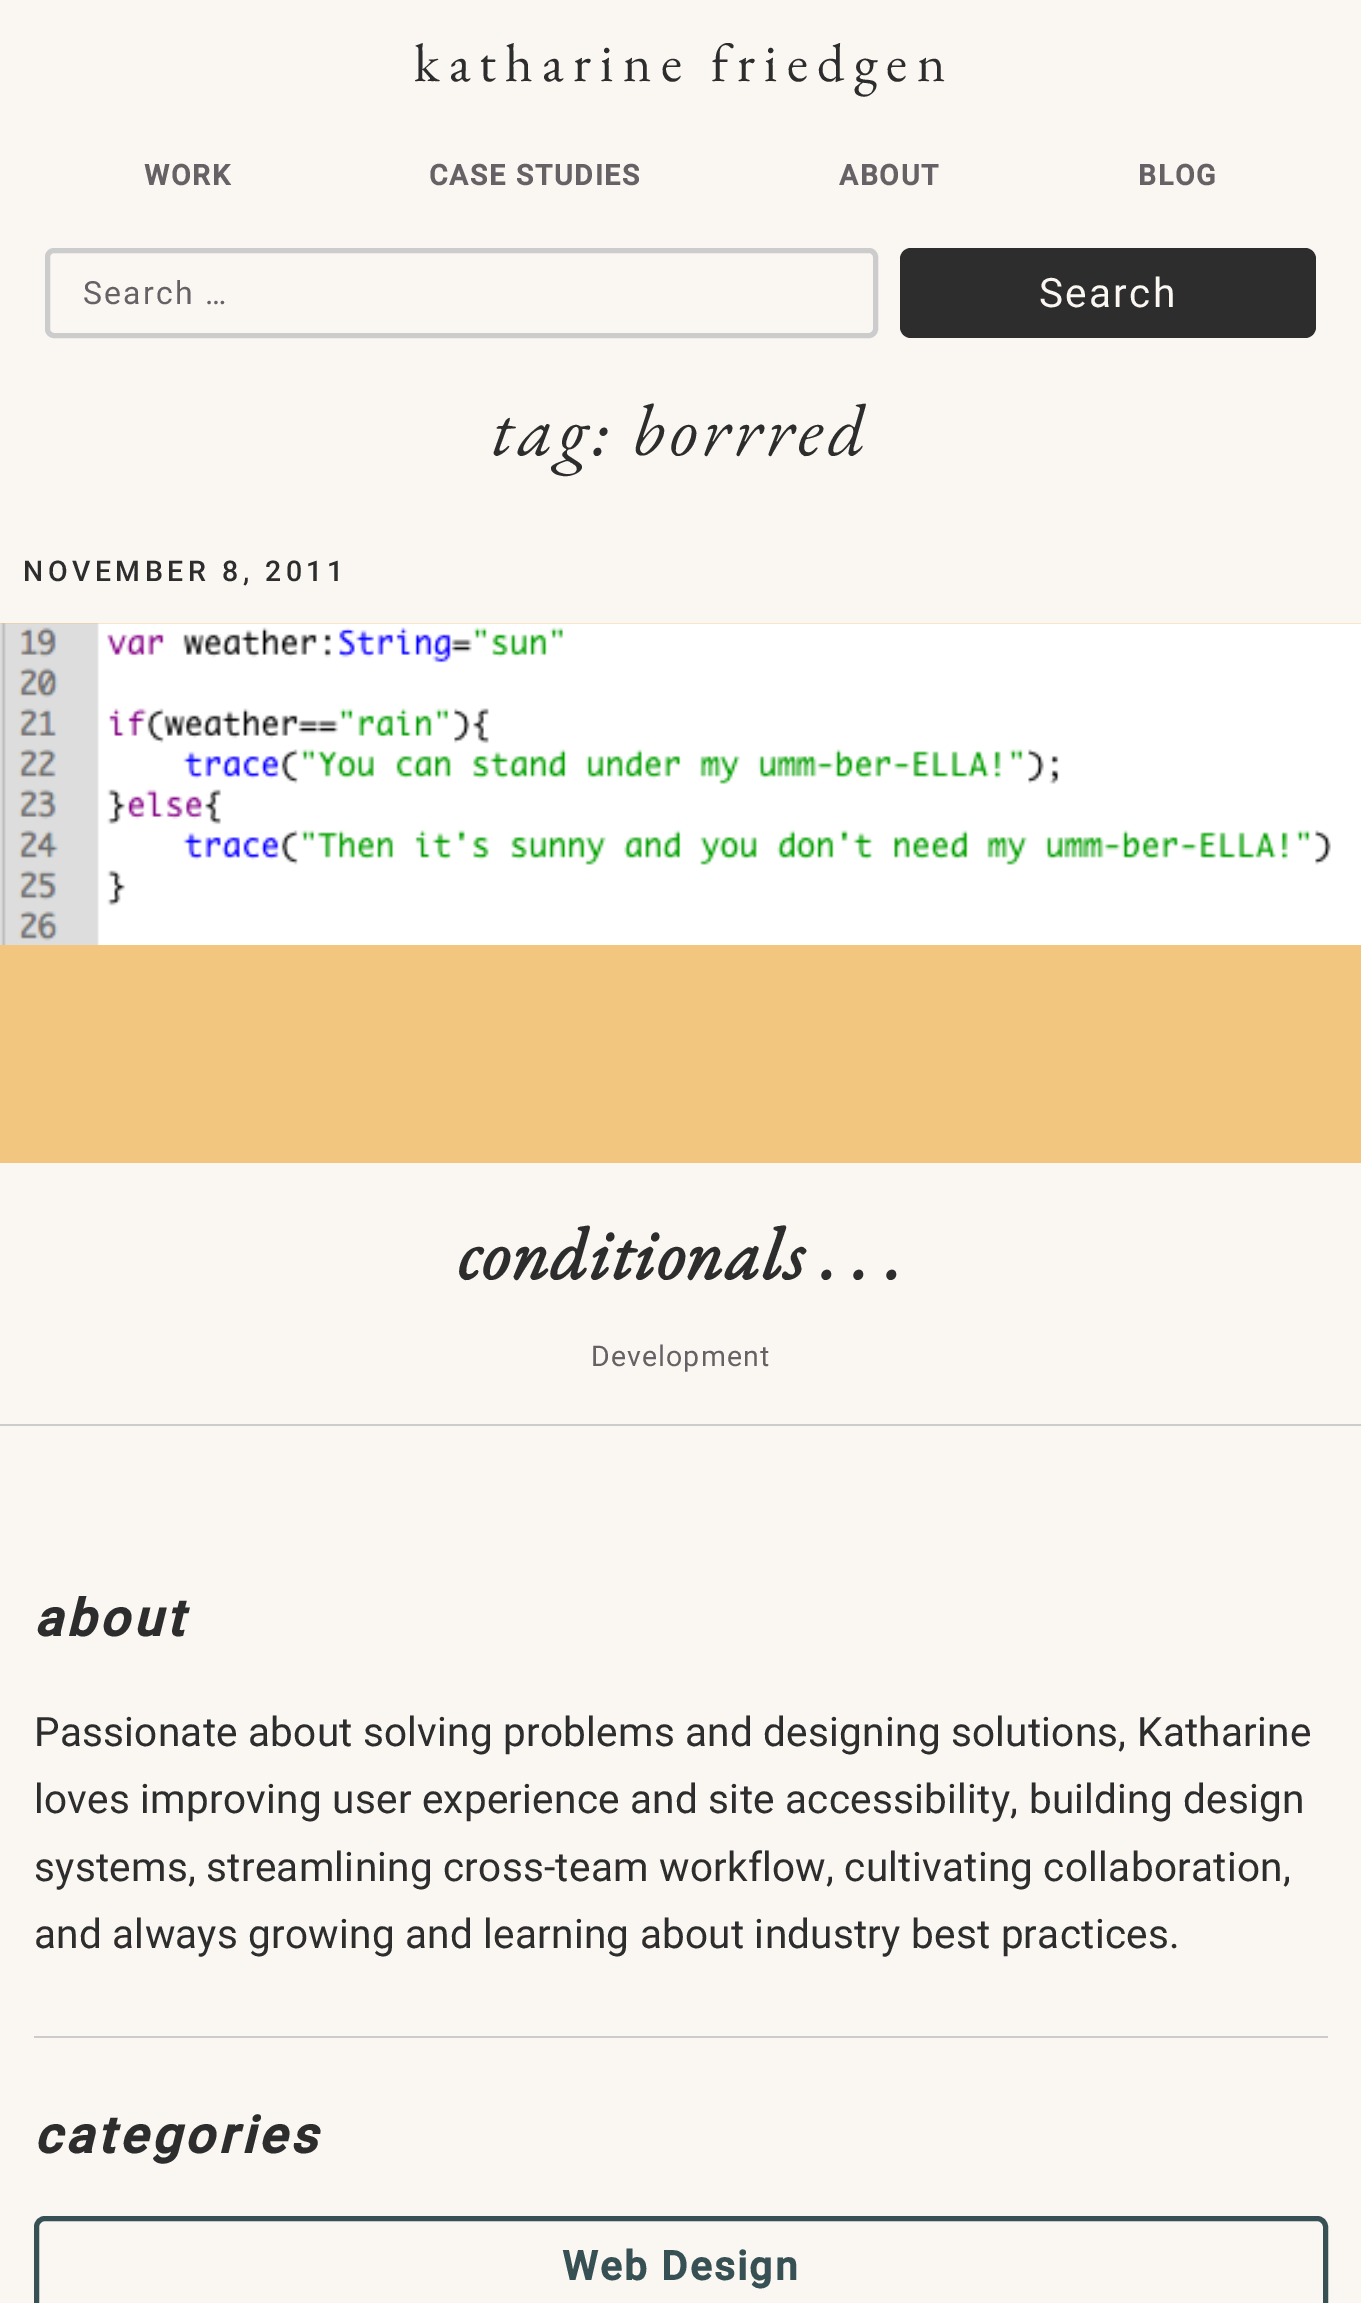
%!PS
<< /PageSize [1361 2303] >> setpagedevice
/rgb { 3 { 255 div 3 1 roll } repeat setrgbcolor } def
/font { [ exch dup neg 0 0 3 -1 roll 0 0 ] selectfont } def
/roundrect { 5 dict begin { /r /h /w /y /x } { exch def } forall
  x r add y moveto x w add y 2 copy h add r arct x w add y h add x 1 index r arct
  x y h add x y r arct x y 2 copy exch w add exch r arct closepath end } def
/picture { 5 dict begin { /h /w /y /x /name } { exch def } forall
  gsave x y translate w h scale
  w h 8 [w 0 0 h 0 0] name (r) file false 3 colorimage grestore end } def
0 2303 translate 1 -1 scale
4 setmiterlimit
250 247 243 rgb
0 0 1361 2303 rectfill
204 204 204 rgb
5 setlinewidth
47.5 250.5 828 85 6.5 roundrect stroke
45 45 45 rgb
900 248 416 90 11 roundrect fill
204 204 204 rgb
0 1424 1361 2 rectfill
242 198 127 rgb
0 623 1361 540 rectfill
(img/1.rgb) 0 623 1361 322 picture
204 204 204 rgb
34 2036 1294 2 rectfill
55 80 83 rgb
36.5 2218.5 1289 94 8.5 roundrect stroke
/EBGaramond-Regular 54 font
45 45 45 rgb
414 81 moveto 9.2 0 (katharine friedgen) ashow
/Roboto-Bold 28.5 font
101 97 101 rgb
144 185 moveto 1.75 0 (WORK) ashow
429 185 moveto 1.75 0 (CASE STUDIES) ashow
839 185 moveto 1.75 0 (ABOUT) ashow
1138 185 moveto 1.75 0 (BLOG) ashow
/Roboto-Regular 32 font
83 304 moveto 2.25 0 (Search …) ashow
/Roboto-Regular 40.5 font
250 247 243 rgb
1039 307 moveto 2.25 0 (Search) ashow
/EBGaramond-Italic 73 font
45 45 45 rgb
492 455 moveto 4.5 0 (tag: borrred) ashow
/Roboto-Medium 28.5 font
23 581 moveto 4.5 0 (NOVEMBER 8, 2011) ashow
/EBGaramond-BoldItalic 73 font
458 1279 moveto 1.1 0 (conditionals . . .) ashow
/Roboto-Regular 28.5 font
101 97 101 rgb
591 1366 moveto 1.1 0 (Development) ashow
/Roboto-BoldItalic 51.25 font
45 45 45 rgb
34 1636 moveto 4.5 0 (about) ashow
/Roboto-Regular 40.5 font
34 1746 moveto 0.23 0 (Passionate about solving problems and designing solutions, Katharine) ashow
34 1813 moveto 0.23 0 (loves improving user experience and site accessibility, building design) ashow
34 1881 moveto 0.23 0 (systems, streamlining cross-team workflow, cultivating collaboration,) ashow
34 1948 moveto 0.23 0 (and always growing and learning about industry best practices.) ashow
/Roboto-BoldItalic 51.25 font
34 2153 moveto 4.5 0 (categories) ashow
/Roboto-Bold 40.5 font
55 80 83 rgb
562 2280 moveto 2.25 0 (Web Design) ashow
showpage
